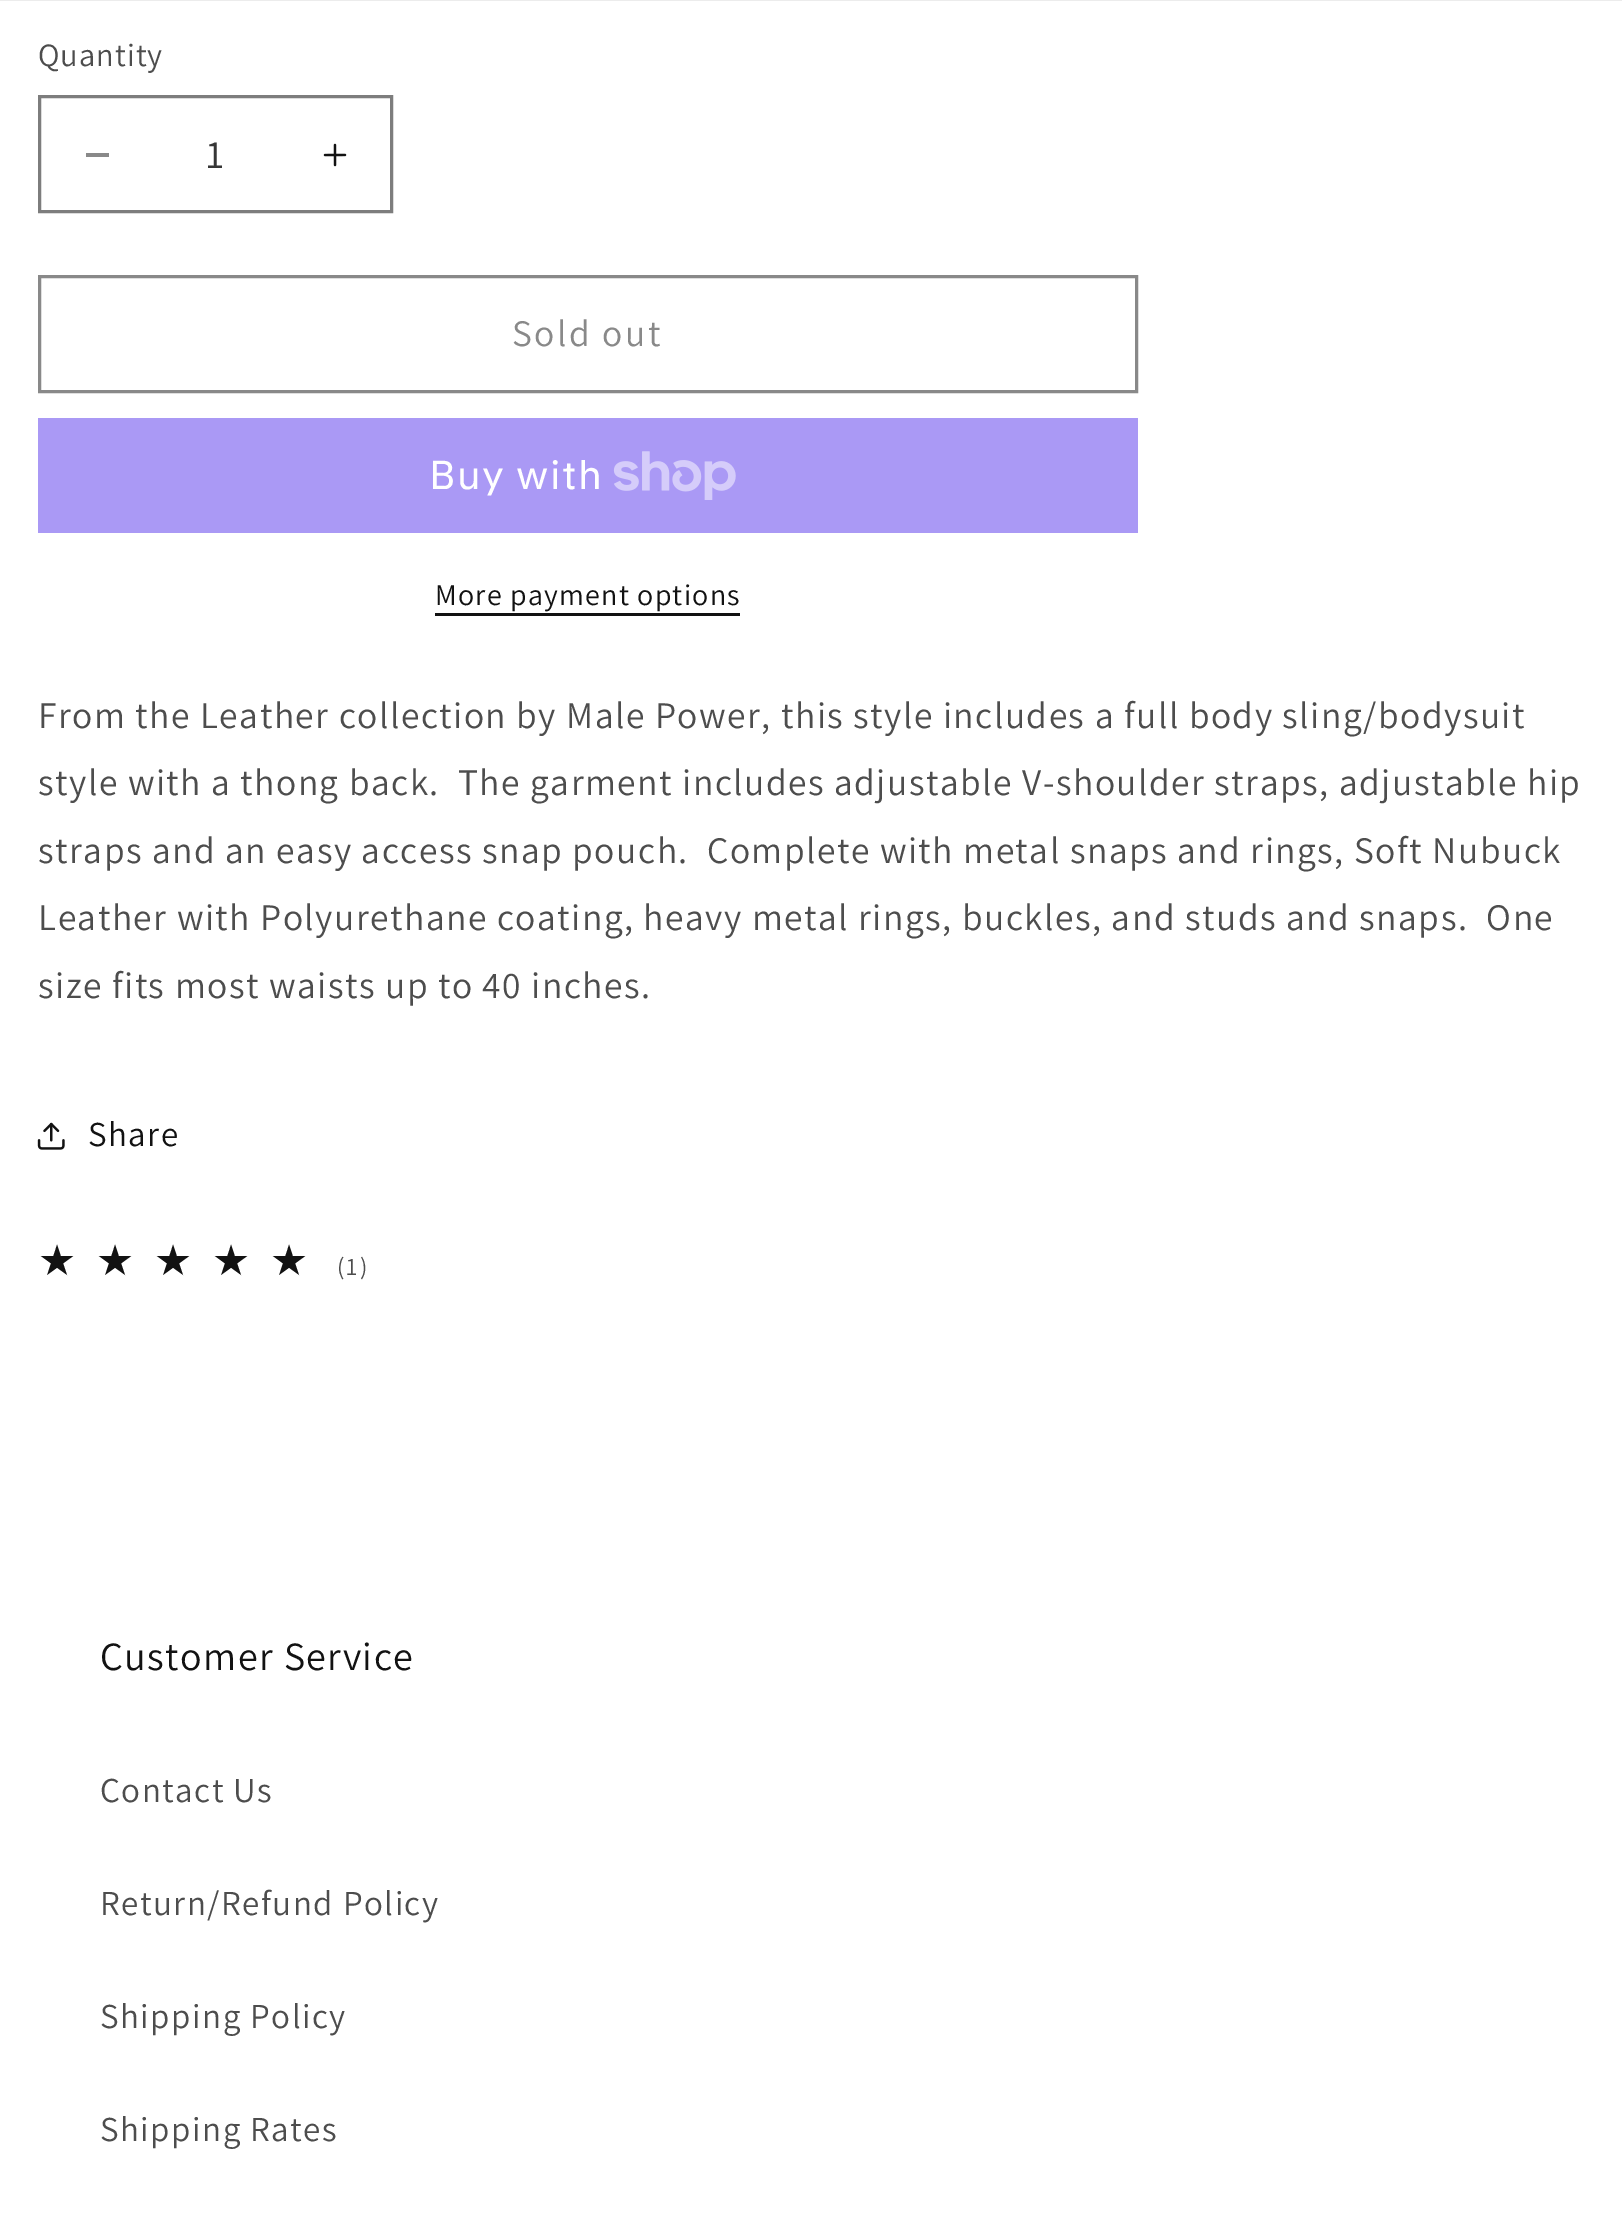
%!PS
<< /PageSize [1622 2213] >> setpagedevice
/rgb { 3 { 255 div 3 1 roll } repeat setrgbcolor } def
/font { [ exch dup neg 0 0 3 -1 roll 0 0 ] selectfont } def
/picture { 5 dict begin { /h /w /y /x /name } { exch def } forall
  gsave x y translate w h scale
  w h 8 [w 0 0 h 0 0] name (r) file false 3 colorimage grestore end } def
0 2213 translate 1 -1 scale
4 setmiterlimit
255 255 255 rgb
0 0 1622 2213 rectfill
236 236 236 rgb
0 0 1622 1 rectfill
137 137 137 rgb
86 153 23 4 rectfill
(img/1.rgb) 323 143 24 24 picture
125 125 125 rgb
3 setlinewidth
39.5 96.5 352 115 rectstroke
137 137 137 rgb
39.5 276.5 1097 115 rectstroke
170 153 245 rgb
38 418 1100 115 rectfill
(img/2.rgb) 613 451 123 49 picture
18 18 18 rgb
435 613 305 3 rectfill
(img/3.rgb) 37 1122 28 28 picture
/Assistant-Regular 32.5 font
77 77 77 rgb
38 66 moveto 1 0 (Quantity) ashow
/Assistant-Regular 40 font
54 54 54 rgb
206 168 moveto (1) show
/Assistant-Regular 37.5 font
137 137 137 rgb
512 346 moveto 2.5 0 (Sold out) ashow
/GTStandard-Regular 40 font
255 255 255 rgb
429 489 moveto 1.5 0 (Buy with) ashow
/Assistant-Regular 30 font
18 18 18 rgb
435 605 moveto 1.25 0 (More payment options) ashow
/Assistant-Regular 37.5 font
77 77 77 rgb
38 728 moveto 1.5 0 (From the Leather collection by Male Power, this style includes a full body sling/bodysuit) ashow
38 795 moveto 1.5 0 (style with a thong back.  The garment includes adjustable V-shoulder straps, adjustable hip) ashow
38 863 moveto 1.5 0 (straps and an easy access snap pouch.  Complete with metal snaps and rings, Soft Nubuck) ashow
38 930 moveto 1.5 0 (Leather with Polyurethane coating, heavy metal rings, buckles, and studs and snaps.  One) ashow
38 998 moveto 1.5 0 (size fits most waists up to 40 inches.) ashow
/Assistant-Regular 35 font
18 18 18 rgb
88 1146 moveto 1.5 0 (Share) ashow
/DejaVuSans-Regular 42.5 font
38 1275 moveto 20 0 (★★★★★) ashow
/Assistant-Regular 25 font
77 77 77 rgb
337 1275 moveto 2 0 (\(1\)) ashow
/Assistant-Regular 40 font
18 18 18 rgb
100 1670 moveto 1.5 0 (Customer Service) ashow
/Assistant-Regular 35 font
77 77 77 rgb
100 1802 moveto 1.5 0 (Contact Us) ashow
100 1915 moveto 1.5 0 (Return/Refund Policy) ashow
100 2028 moveto 1.5 0 (Shipping Policy) ashow
100 2141 moveto 1.5 0 (Shipping Rates) ashow
showpage
